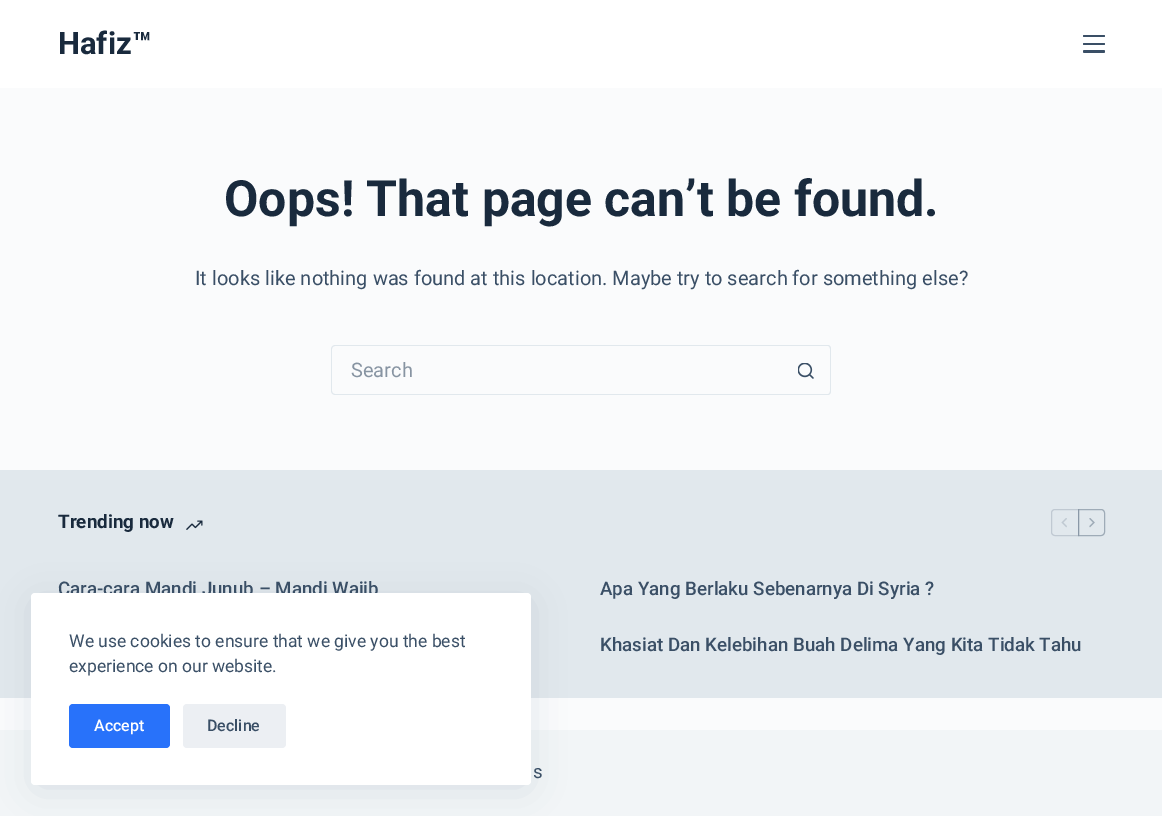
%!PS
<< /PageSize [1162 816] /PageUsesTransparency true >> setpagedevice
/rgb { 3 { 255 div 3 1 roll } repeat setrgbcolor } def
/font { [ exch dup neg 0 0 3 -1 roll 0 0 ] selectfont } def
/alpha { dup .setfillconstantalpha .setstrokeconstantalpha } def
/roundrect { 5 dict begin { /r /h /w /y /x } { exch def } forall
  x r add y moveto x w add y 2 copy h add r arct x w add y h add x 1 index r arct
  x y h add x y r arct x y 2 copy exch w add exch r arct closepath end } def
/shadow { 12 dict begin { /a /b /q /h /w /y /x } { exch def } forall gsave /was 0 def
  9 -2 -9 { dup b mul 4 div /e exch def 1 sub .425 mul 2.718 exch exp 1 add a .99 .min exch div /now exch def
    1 1 now sub 1 was sub div sub alpha /was now def
    w h .min e 2 mul add 0 gt { x e sub y e sub w e 2 mul add h e 2 mul add
      q e add b .6 mul add w h .min 2 div e add .min 0 .max roundrect fill } if } for grestore end } def
/picture { 5 dict begin { /h /w /y /x /name } { exch def } forall
  gsave x y translate w h scale
  w h 8 [w 0 0 h 0 0] name (r) file false 3 colorimage grestore end } def
0 .pushpdf14devicefilter
0 816 translate 1 -1 scale
4 setmiterlimit
250 251 252 rgb
0 0 1162 816 rectfill
255 255 255 rgb
0 0 1162 88 rectfill
58 79 102 rgb
1083 35 22 2 1 roundrect fill
1083 43 22 2 1 roundrect fill
1083 50 22 3 1.5 roundrect fill
225 232 237 rgb
335 345 moveto 781 345 lineto 781 395 lineto 335 395 lineto 333 395 331 393 331 391 curveto 331 349 lineto 331 347 333 345 335 345 curveto closepath 335 346 moveto 781 346 lineto 781 394 lineto 335 394 lineto 334 394 332 393 332 391 curveto 332 349 lineto 332 347 334 346 335 346 curveto closepath eofill
781 345 moveto 828 345 lineto 830 345 831 347 831 349 curveto 831 391 lineto 831 393 830 395 828 395 curveto 781 395 lineto closepath 781 346 moveto 828 346 lineto 829 346 830 347 830 349 curveto 830 391 lineto 830 393 829 394 828 394 curveto 781 394 lineto closepath eofill
(img/1.rgb) 798 363 16 16 picture
0 470 1162 228 rectfill
(img/2.rgb) 186 520 17 10 picture
192 201 210 rgb
1055 509.5 moveto 1078.5 509.5 lineto 1078.5 535.5 lineto 1055 535.5 lineto 1053 535.5 1051.5 534 1051.5 532 curveto 1051.5 513 lineto 1051.5 511 1053 509.5 1055 509.5 curveto closepath stroke
(img/3.rgb) 1061 518 6 10 picture
0.4 alpha
58 79 102 rgb
1078.5 509.5 moveto 1101 509.5 lineto 1103 509.5 1104.5 511 1104.5 513 curveto 1104.5 532 lineto 1104.5 534 1103 535.5 1101 535.5 curveto 1078.5 535.5 lineto closepath stroke
1 alpha
(img/4.rgb) 1089 518 6 10 picture
242 245 247 rgb
0 730 1162 86 rectfill
34 56 101 rgb
38 605 487 180 0 19 0.15 shadow
/Roboto-Bold 31 font
25 42 61 rgb
58 54 moveto (Hafiz™) show
/Roboto-Bold 50 font
224 216 moveto (Oops! That page can’t be found.) show
/Roboto-Regular 20 font
58 79 102 rgb
195 285 moveto (It looks like nothing was found at this location. Maybe try to search for something else?) show
135 148 162 rgb
351 377 moveto (Search) show
/Roboto-Bold 18.75 font
25 42 61 rgb
58 528 moveto (Trending now) show
/Roboto-Medium 18.75 font
58 79 102 rgb
[
  [(Cara-cara Mandi Junub – Mandi Wajib) 58 595]
  [(Apa Yang Berlaku Sebenarnya Di Syria ?) 600 595]
  [(Khasiat Dan Kelebihan Buah Delima Yang Kita Tidak Tahu) 600 651]
] { aload pop moveto show } forall
/Roboto-Regular 18.75 font
533 778 moveto (s) show
255 255 255 rgb
31 593 500 192 4 roundrect fill
/Roboto-Regular 17.5 font
58 79 102 rgb
69 647 moveto (We use cookies to ensure that we give you the best) show
69 672 moveto (experience on our website.) show
40 114 250 rgb
69 704 101 44 4 roundrect fill
/Roboto-Medium 16 font
255 255 255 rgb
94 731 moveto (Accept) show
236 239 243 rgb
183 704 103 44 4 roundrect fill
58 79 102 rgb
207 731 moveto (Decline) show
.poppdf14devicefilter showpage
